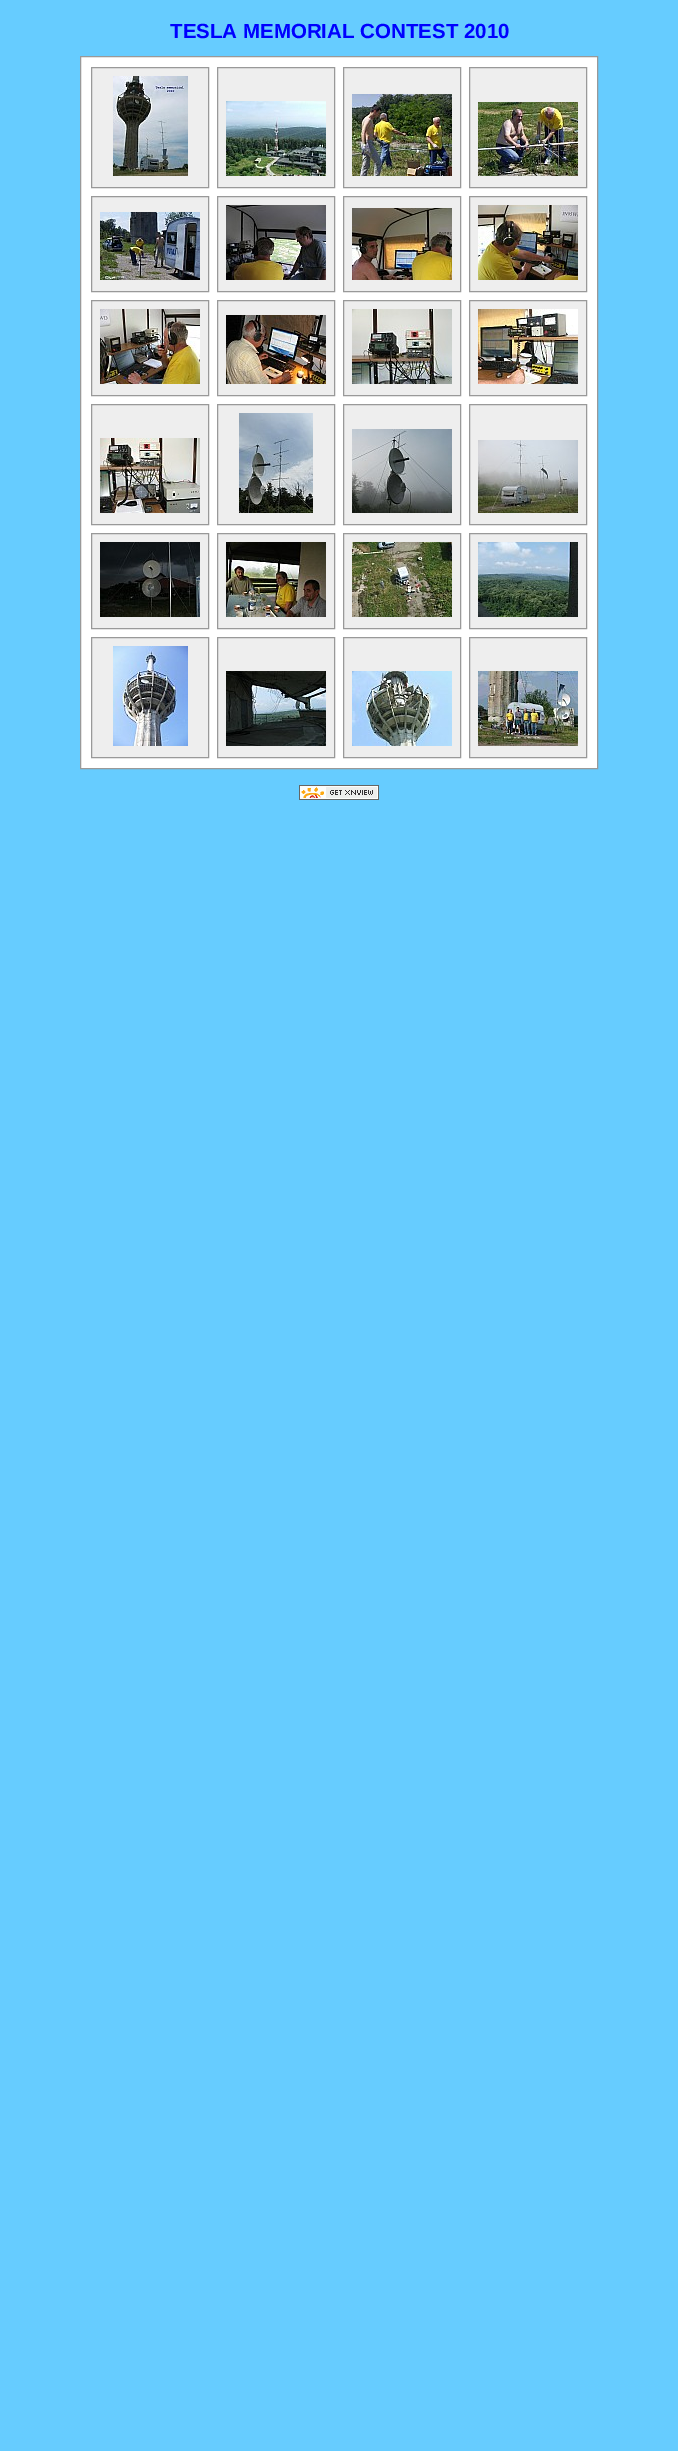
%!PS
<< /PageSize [678 2451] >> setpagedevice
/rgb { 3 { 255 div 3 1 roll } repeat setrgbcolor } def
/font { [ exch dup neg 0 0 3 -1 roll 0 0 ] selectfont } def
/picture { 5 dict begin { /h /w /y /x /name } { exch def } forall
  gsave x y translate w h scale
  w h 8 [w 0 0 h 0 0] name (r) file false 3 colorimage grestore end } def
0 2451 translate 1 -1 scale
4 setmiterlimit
102 204 255 rgb
0 0 678 2451 rectfill
255 255 255 rgb
80.5 56.5 moveto 597.5 56.5 lineto 597.5 768.5 lineto 80.5 768.5 lineto closepath gsave fill grestore
153 153 153 rgb
stroke
238 238 238 rgb
91.5 67.5 moveto 208.5 67.5 lineto 208.5 187.5 lineto 91.5 187.5 lineto closepath gsave fill grestore
153 153 153 rgb
stroke
(img/1.rgb) 113 76 75 100 picture
238 238 238 rgb
217.5 67.5 moveto 334.5 67.5 lineto 334.5 187.5 lineto 217.5 187.5 lineto closepath gsave fill grestore
153 153 153 rgb
stroke
(img/2.rgb) 226 101 100 75 picture
238 238 238 rgb
343.5 67.5 moveto 460.5 67.5 lineto 460.5 187.5 lineto 343.5 187.5 lineto closepath gsave fill grestore
153 153 153 rgb
stroke
(img/3.rgb) 352 94 100 82 picture
238 238 238 rgb
469.5 67.5 moveto 586.5 67.5 lineto 586.5 187.5 lineto 469.5 187.5 lineto closepath gsave fill grestore
153 153 153 rgb
stroke
(img/4.rgb) 478 102 100 74 picture
238 238 238 rgb
91.5 196.5 moveto 208.5 196.5 lineto 208.5 291.5 lineto 91.5 291.5 lineto closepath gsave fill grestore
153 153 153 rgb
stroke
(img/5.rgb) 100 212 100 68 picture
238 238 238 rgb
217.5 196.5 moveto 334.5 196.5 lineto 334.5 291.5 lineto 217.5 291.5 lineto closepath gsave fill grestore
153 153 153 rgb
stroke
(img/6.rgb) 226 205 100 75 picture
238 238 238 rgb
343.5 196.5 moveto 460.5 196.5 lineto 460.5 291.5 lineto 343.5 291.5 lineto closepath gsave fill grestore
153 153 153 rgb
stroke
(img/7.rgb) 352 208 100 72 picture
238 238 238 rgb
469.5 196.5 moveto 586.5 196.5 lineto 586.5 291.5 lineto 469.5 291.5 lineto closepath gsave fill grestore
153 153 153 rgb
stroke
(img/8.rgb) 478 205 100 75 picture
238 238 238 rgb
91.5 300.5 moveto 208.5 300.5 lineto 208.5 395.5 lineto 91.5 395.5 lineto closepath gsave fill grestore
153 153 153 rgb
stroke
(img/9.rgb) 100 309 100 75 picture
238 238 238 rgb
217.5 300.5 moveto 334.5 300.5 lineto 334.5 395.5 lineto 217.5 395.5 lineto closepath gsave fill grestore
153 153 153 rgb
stroke
(img/10.rgb) 226 315 100 69 picture
238 238 238 rgb
343.5 300.5 moveto 460.5 300.5 lineto 460.5 395.5 lineto 343.5 395.5 lineto closepath gsave fill grestore
153 153 153 rgb
stroke
(img/11.rgb) 352 309 100 75 picture
238 238 238 rgb
469.5 300.5 moveto 586.5 300.5 lineto 586.5 395.5 lineto 469.5 395.5 lineto closepath gsave fill grestore
153 153 153 rgb
stroke
(img/12.rgb) 478 309 100 75 picture
238 238 238 rgb
91.5 404.5 moveto 208.5 404.5 lineto 208.5 524.5 lineto 91.5 524.5 lineto closepath gsave fill grestore
153 153 153 rgb
stroke
(img/13.rgb) 100 438 100 75 picture
238 238 238 rgb
217.5 404.5 moveto 334.5 404.5 lineto 334.5 524.5 lineto 217.5 524.5 lineto closepath gsave fill grestore
153 153 153 rgb
stroke
(img/14.rgb) 239 413 74 100 picture
238 238 238 rgb
343.5 404.5 moveto 460.5 404.5 lineto 460.5 524.5 lineto 343.5 524.5 lineto closepath gsave fill grestore
153 153 153 rgb
stroke
(img/15.rgb) 352 429 100 84 picture
238 238 238 rgb
469.5 404.5 moveto 586.5 404.5 lineto 586.5 524.5 lineto 469.5 524.5 lineto closepath gsave fill grestore
153 153 153 rgb
stroke
(img/16.rgb) 478 440 100 73 picture
238 238 238 rgb
91.5 533.5 moveto 208.5 533.5 lineto 208.5 628.5 lineto 91.5 628.5 lineto closepath gsave fill grestore
153 153 153 rgb
stroke
(img/17.rgb) 100 542 100 75 picture
238 238 238 rgb
217.5 533.5 moveto 334.5 533.5 lineto 334.5 628.5 lineto 217.5 628.5 lineto closepath gsave fill grestore
153 153 153 rgb
stroke
(img/18.rgb) 226 542 100 75 picture
238 238 238 rgb
343.5 533.5 moveto 460.5 533.5 lineto 460.5 628.5 lineto 343.5 628.5 lineto closepath gsave fill grestore
153 153 153 rgb
stroke
(img/19.rgb) 352 542 100 75 picture
238 238 238 rgb
469.5 533.5 moveto 586.5 533.5 lineto 586.5 628.5 lineto 469.5 628.5 lineto closepath gsave fill grestore
153 153 153 rgb
stroke
(img/20.rgb) 478 542 100 75 picture
238 238 238 rgb
91.5 637.5 moveto 208.5 637.5 lineto 208.5 757.5 lineto 91.5 757.5 lineto closepath gsave fill grestore
153 153 153 rgb
stroke
(img/21.rgb) 113 646 75 100 picture
238 238 238 rgb
217.5 637.5 moveto 334.5 637.5 lineto 334.5 757.5 lineto 217.5 757.5 lineto closepath gsave fill grestore
153 153 153 rgb
stroke
(img/22.rgb) 226 671 100 75 picture
238 238 238 rgb
343.5 637.5 moveto 460.5 637.5 lineto 460.5 757.5 lineto 343.5 757.5 lineto closepath gsave fill grestore
153 153 153 rgb
stroke
(img/23.rgb) 352 671 100 75 picture
238 238 238 rgb
469.5 637.5 moveto 586.5 637.5 lineto 586.5 757.5 lineto 469.5 757.5 lineto closepath gsave fill grestore
153 153 153 rgb
stroke
(img/24.rgb) 478 671 100 75 picture
(img/25.rgb) 299 785 80 15 picture
/LiberationSans-Bold 20.5 font
0 0 255 rgb
170 38 moveto (TESLA MEMORIAL CONTEST 2010) show
showpage
